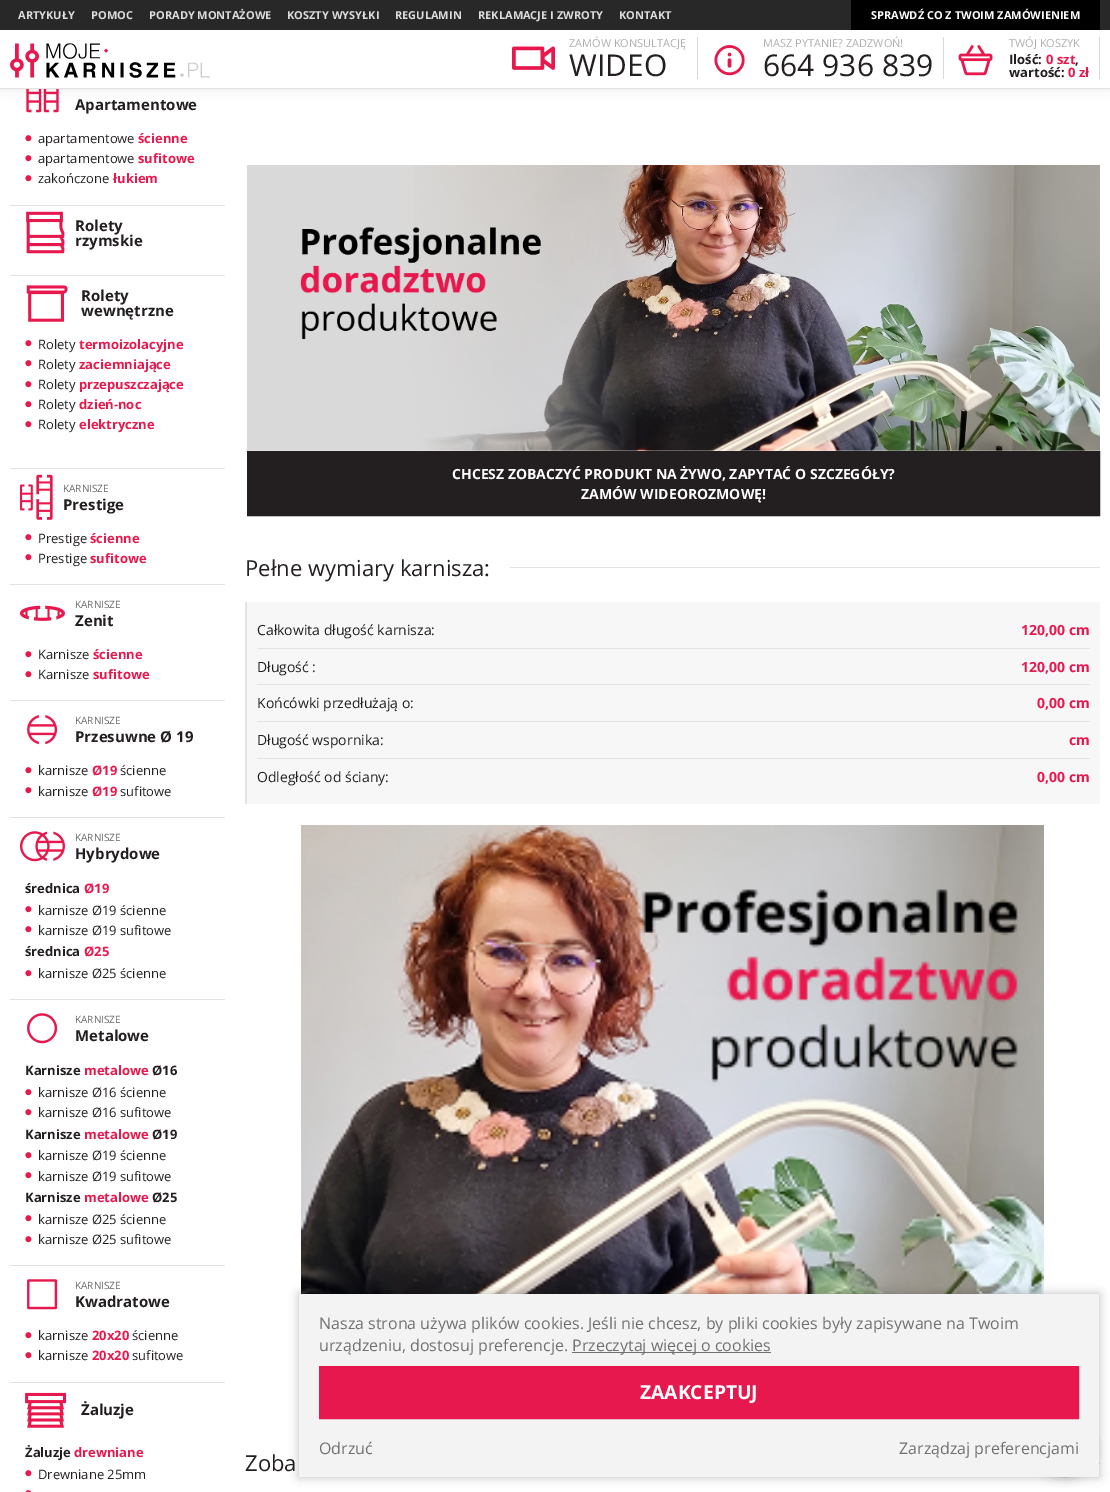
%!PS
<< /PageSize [1110 1492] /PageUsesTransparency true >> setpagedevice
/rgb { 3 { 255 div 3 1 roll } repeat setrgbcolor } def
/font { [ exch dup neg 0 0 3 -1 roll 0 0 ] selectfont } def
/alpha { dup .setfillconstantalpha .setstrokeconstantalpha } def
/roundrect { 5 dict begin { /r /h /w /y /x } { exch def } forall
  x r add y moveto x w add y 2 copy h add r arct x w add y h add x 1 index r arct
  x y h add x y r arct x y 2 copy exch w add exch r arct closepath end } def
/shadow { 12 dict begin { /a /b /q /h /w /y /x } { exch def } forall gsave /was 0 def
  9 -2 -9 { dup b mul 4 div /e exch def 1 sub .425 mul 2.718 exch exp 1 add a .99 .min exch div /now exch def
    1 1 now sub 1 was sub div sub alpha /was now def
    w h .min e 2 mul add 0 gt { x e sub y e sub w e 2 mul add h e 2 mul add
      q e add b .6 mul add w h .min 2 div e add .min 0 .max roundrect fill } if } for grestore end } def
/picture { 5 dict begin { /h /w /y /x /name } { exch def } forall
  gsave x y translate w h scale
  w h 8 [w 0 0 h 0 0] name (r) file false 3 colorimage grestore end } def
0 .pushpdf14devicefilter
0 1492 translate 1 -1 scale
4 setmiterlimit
255 255 255 rgb
0 0 1110 1492 rectfill
(img/5.rgb) 26 89 33 24 picture
0 0 0 rgb
0 0 1110 89 0 5 0.1 shadow
[
  [0 30 1110 58 255 255 255]
  [0 88 1110 1 227 227 227]
  [0 0 1110 30 40 40 40]
  [851 0 249 30 0 0 0]
] { aload pop rgb rectfill } forall
(img/1.rgb) 10 43 200 35 picture
(img/2.rgb) 512 46 43 24 picture
217 217 217 rgb
697 37 1 42 rectfill
(img/3.rgb) 714 45 31 31 picture
943 37 1 42 rectfill
(img/4.rgb) 958 45 35 31 picture
1099 37 1 42 rectfill
227 227 227 rgb
10 205 215 1 rectfill
(img/6.rgb) 25 135 7 7 picture
(img/6.rgb) 25 155 7 7 picture
(img/6.rgb) 25 175 7 7 picture
10 275 215 1 rectfill
(img/7.rgb) 26 211 39 43 picture
10 468 215 1 rectfill
(img/8.rgb) 26 285 42 37 picture
(img/6.rgb) 25 340 7 7 picture
(img/6.rgb) 25 360 7 7 picture
(img/6.rgb) 25 381 7 7 picture
(img/6.rgb) 25 401 7 7 picture
(img/6.rgb) 25 421 7 7 picture
10 584 215 1 rectfill
(img/9.rgb) 20 474 33 46 picture
(img/6.rgb) 25 534 7 7 picture
(img/6.rgb) 25 554 7 7 picture
10 700 215 1 rectfill
(img/10.rgb) 20 605 45 16 picture
(img/6.rgb) 25 651 7 7 picture
(img/6.rgb) 25 671 7 7 picture
10 817 215 1 rectfill
(img/11.rgb) 27 715 31 30 picture
(img/6.rgb) 25 767 7 7 picture
(img/6.rgb) 25 787 7 7 picture
10 999 215 1 rectfill
(img/12.rgb) 20 831 45 31 picture
(img/6.rgb) 25 906 7 7 picture
(img/6.rgb) 25 926 7 7 picture
(img/6.rgb) 25 970 7 7 picture
10 1265 215 1 rectfill
(img/13.rgb) 27 1013 31 31 picture
(img/6.rgb) 25 1089 7 7 picture
(img/6.rgb) 25 1109 7 7 picture
(img/6.rgb) 25 1152 7 7 picture
(img/6.rgb) 25 1172 7 7 picture
(img/6.rgb) 25 1215 7 7 picture
(img/6.rgb) 25 1236 7 7 picture
10 1382 215 1 rectfill
(img/14.rgb) 27 1279 31 31 picture
(img/6.rgb) 25 1332 7 7 picture
(img/6.rgb) 25 1352 7 7 picture
(img/15.rgb) 25 1392 41 36 picture
(img/6.rgb) 25 1470 7 7 picture
(img/16.rgb) 25 1490 6 2 picture
(img/17.rgb) 247 165 853 286 picture
35 31 32 rgb
247.5 451.5 moveto 1099.5 451.5 lineto 1099.5 515.5 lineto 247.5 515.5 lineto closepath gsave fill grestore
stroke
[
  [510 567 590 1 227 227 227]
  [247 602 853 202 247 247 247]
  [245 602 2 202 227 227 227]
  [257 648 833 1 227 227 227]
  [257 684 833 1 227 227 227]
  [257 721 833 1 227 227 227]
  [257 758 833 1 227 227 227]
] { aload pop rgb rectfill } forall
(img/18.rgb) 301 825 743 469 picture
1099 1463 1 1 rectfill
0 0 0 rgb
299 1294 800 183 0 5 0.25 shadow
1041 1427 47 46 23 6.5 0.5 shadow
243 243 243 rgb
299 1294 800 183 rectfill
112 112 112 rgb
572 1352 199 1 rectfill
231 24 77 rgb
319.5 1366.5 moveto 1078.5 1366.5 lineto 1078.5 1418.5 lineto 319.5 1418.5 lineto closepath gsave fill grestore
stroke
/OpenSans-Bold 11 font
222 220 220 rgb
[
  [(ARTYKUŁY) 18 19]
  [(POMOC) 91 19]
  [(PORADY MONTAŻOWE) 149 19]
  [(KOSZTY WYSYŁKI) 287 19]
  [(REGULAMIN) 395 19]
  [(REKLAMACJE I ZWROTY) 478 19]
  [(KONTAKT) 619 19]
] { aload pop moveto show } forall
255 255 255 rgb
871 19 moveto (SPRAWDŹ CO Z TWOIM ZAMÓWIENIEM) show
/OpenSans-Regular 11 font
173 173 173 rgb
569 47 moveto (ZAMÓW KONSULTACJĘ) show
/OpenSans-Regular 30 font
35 31 32 rgb
569 76 moveto (WIDEO) show
/OpenSans-Regular 11 font
173 173 173 rgb
763 47 moveto (MASZ PYTANIE? ZADZWOŃ!) show
/OpenSans-Regular 30 font
35 31 32 rgb
763 76 moveto (664 936 839) show
/OpenSans-Regular 11 font
173 173 173 rgb
1009 47 moveto (TWÓJ KOSZYK) show
/OpenSans-Bold 13 font
35 31 32 rgb
1009 64 moveto (Ilość:) show
231 24 77 rgb
1046 64 moveto (0 szt) show
35 31 32 rgb
1075 64 moveto (,) show
1009 77 moveto (wartość:) show
231 24 77 rgb
1068 77 moveto (0 zł) show
/OpenSans-Bold 15 font
35 31 32 rgb
75 110 moveto (Apartamentowe) show
/OpenSans-Regular 13 font
38 143 moveto (apartamentowe) show
/OpenSans-Bold 13 font
231 24 77 rgb
138 143 moveto (ścienne) show
/OpenSans-Regular 13 font
35 31 32 rgb
38 163 moveto (apartamentowe) show
/OpenSans-Bold 13 font
231 24 77 rgb
138 163 moveto (sufitowe) show
/OpenSans-Regular 13 font
35 31 32 rgb
38 183 moveto (zakończone) show
/OpenSans-Bold 13 font
231 24 77 rgb
113 183 moveto (łukiem) show
/OpenSans-Bold 15 font
35 31 32 rgb
[
  [(Rolety) 75 231]
  [(rzymskie) 75 246]
  [(Rolety) 81 301]
  [(wewnętrzne) 81 316]
] { aload pop moveto show } forall
/OpenSans-Regular 13 font
38 349 moveto (Rolety) show
/OpenSans-Bold 13 font
231 24 77 rgb
79 349 moveto (termoizolacyjne) show
/OpenSans-Regular 13 font
35 31 32 rgb
38 369 moveto (Rolety) show
/OpenSans-Bold 13 font
231 24 77 rgb
79 369 moveto (zaciemniające) show
/OpenSans-Regular 13 font
35 31 32 rgb
38 389 moveto (Rolety) show
/OpenSans-Bold 13 font
231 24 77 rgb
79 389 moveto (przepuszczające) show
/OpenSans-Regular 13 font
35 31 32 rgb
38 409 moveto (Rolety) show
/OpenSans-Bold 13 font
231 24 77 rgb
79 409 moveto (dzień-noc) show
/OpenSans-Regular 13 font
35 31 32 rgb
38 429 moveto (Rolety) show
/OpenSans-Bold 13 font
231 24 77 rgb
79 429 moveto (elektryczne) show
/OpenSans-Regular 10 font
102 102 102 rgb
63 492 moveto (KARNISZE) show
/OpenSans-Bold 15 font
35 31 32 rgb
63 510 moveto (Prestige) show
/OpenSans-Regular 13 font
38 543 moveto (Prestige) show
/OpenSans-Bold 13 font
231 24 77 rgb
90 543 moveto (ścienne) show
/OpenSans-Regular 13 font
35 31 32 rgb
38 563 moveto (Prestige) show
/OpenSans-Bold 13 font
231 24 77 rgb
90 563 moveto (sufitowe) show
/OpenSans-Regular 10 font
102 102 102 rgb
75 608 moveto (KARNISZE) show
/OpenSans-Bold 15 font
35 31 32 rgb
75 626 moveto (Zenit) show
/OpenSans-Regular 13 font
38 659 moveto (Karnisze) show
/OpenSans-Bold 13 font
231 24 77 rgb
93 659 moveto (ścienne) show
/OpenSans-Regular 13 font
35 31 32 rgb
38 679 moveto (Karnisze) show
/OpenSans-Bold 13 font
231 24 77 rgb
93 679 moveto (sufitowe) show
/OpenSans-Regular 10 font
102 102 102 rgb
75 724 moveto (KARNISZE) show
/OpenSans-Bold 15 font
35 31 32 rgb
75 742 moveto (Przesuwne Ø 19) show
/OpenSans-Regular 13 font
38 775 moveto (karnisze) show
/OpenSans-Bold 13 font
231 24 77 rgb
92 775 moveto (Ø19) show
/OpenSans-Regular 13 font
35 31 32 rgb
120 775 moveto (ścienne) show
38 796 moveto (karnisze) show
/OpenSans-Bold 13 font
231 24 77 rgb
92 796 moveto (Ø19) show
/OpenSans-Regular 13 font
35 31 32 rgb
120 796 moveto (sufitowe) show
/OpenSans-Regular 10 font
102 102 102 rgb
75 841 moveto (KARNISZE) show
/OpenSans-Bold 15 font
35 31 32 rgb
75 859 moveto (Hybrydowe) show
/OpenSans-Bold 13 font
25 893 moveto (średnica) show
231 24 77 rgb
84 893 moveto (Ø19) show
/OpenSans-Regular 13 font
35 31 32 rgb
38 915 moveto (karnisze Ø19 ścienne) show
38 935 moveto (karnisze Ø19 sufitowe) show
/OpenSans-Bold 13 font
25 956 moveto (średnica) show
231 24 77 rgb
84 956 moveto (Ø25) show
/OpenSans-Regular 13 font
35 31 32 rgb
38 978 moveto (karnisze Ø25 ścienne) show
/OpenSans-Regular 10 font
102 102 102 rgb
75 1023 moveto (KARNISZE) show
/OpenSans-Bold 15 font
35 31 32 rgb
75 1041 moveto (Metalowe) show
/OpenSans-Bold 13 font
25 1075 moveto (Karnisze) show
231 24 77 rgb
84 1075 moveto (metalowe) show
35 31 32 rgb
152 1075 moveto (Ø16) show
/OpenSans-Regular 13 font
38 1097 moveto (karnisze Ø16 ścienne) show
38 1117 moveto (karnisze Ø16 sufitowe) show
/OpenSans-Bold 13 font
25 1139 moveto (Karnisze) show
231 24 77 rgb
84 1139 moveto (metalowe) show
35 31 32 rgb
152 1139 moveto (Ø19) show
/OpenSans-Regular 13 font
38 1160 moveto (karnisze Ø19 ścienne) show
38 1181 moveto (karnisze Ø19 sufitowe) show
/OpenSans-Bold 13 font
25 1202 moveto (Karnisze) show
231 24 77 rgb
84 1202 moveto (metalowe) show
35 31 32 rgb
152 1202 moveto (Ø25) show
/OpenSans-Regular 13 font
38 1224 moveto (karnisze Ø25 ścienne) show
38 1244 moveto (karnisze Ø25 sufitowe) show
/OpenSans-Regular 10 font
102 102 102 rgb
75 1289 moveto (KARNISZE) show
/OpenSans-Bold 15 font
35 31 32 rgb
75 1307 moveto (Kwadratowe) show
/OpenSans-Regular 13 font
38 1340 moveto (karnisze) show
/OpenSans-Bold 13 font
231 24 77 rgb
92 1340 moveto (20x20) show
/OpenSans-Regular 13 font
35 31 32 rgb
132 1340 moveto (ścienne) show
38 1360 moveto (karnisze) show
/OpenSans-Bold 13 font
231 24 77 rgb
92 1360 moveto (20x20) show
/OpenSans-Regular 13 font
35 31 32 rgb
132 1360 moveto (sufitowe) show
/OpenSans-Bold 15 font
81 1415 moveto (Żaluzje) show
/OpenSans-Bold 13 font
25 1457 moveto (Żaluzje) show
231 24 77 rgb
74 1457 moveto (drewniane) show
/OpenSans-Regular 13 font
35 31 32 rgb
38 1479 moveto (Drewniane 25mm) show
/OpenSans-Bold 14 font
255 255 255 rgb
452 479 moveto (CHCESZ ZOBACZYĆ PRODUKT NA ŻYWO, ZAPYTAĆ O SZCZEGÓŁY?) show
581 499 moveto (ZAMÓW WIDEOROZMOWĘ!) show
/OpenSans-Regular 22 font
35 31 32 rgb
245 576 moveto (Pełne wymiary karnisza:) show
/OpenSans-Regular 14 font
257 635 moveto (Całkowita długość karnisza:) show
/OpenSans-Bold 14 font
231 24 77 rgb
1021 635 moveto (120,00 cm) show
/OpenSans-Regular 14 font
35 31 32 rgb
257 672 moveto (Długość :) show
/OpenSans-Bold 14 font
231 24 77 rgb
1021 672 moveto (120,00 cm) show
/OpenSans-Regular 14 font
35 31 32 rgb
257 708 moveto (Końcówki przedłużają o:) show
/OpenSans-Bold 14 font
231 24 77 rgb
1037 708 moveto (0,00 cm) show
/OpenSans-Regular 14 font
35 31 32 rgb
257 745 moveto (Długość wspornika:) show
/OpenSans-Bold 14 font
231 24 77 rgb
1069 745 moveto (cm) show
/OpenSans-Regular 14 font
35 31 32 rgb
257 782 moveto (Odległość od ściany:) show
/OpenSans-Bold 14 font
231 24 77 rgb
1037 782 moveto (0,00 cm) show
/OpenSans-Regular 22 font
35 31 32 rgb
245 1471 moveto (Zoba) show
/OpenSans-Regular 16 font
112 112 112 rgb
[
  [(Nasza strona używa plików cookies. Jeśli nie chcesz, by pliki cookies były zapisywane na Twoim) 319 1329]
  [(urządzeniu, dostosuj preferencje.) 319 1351]
  [(Przeczytaj więcej o cookies) 572 1351]
] { aload pop moveto show } forall
/OpenSans-Bold 19.25 font
255 255 255 rgb
640 1399 moveto (ZAAKCEPTUJ) show
/OpenSans-Regular 16 font
112 112 112 rgb
319 1454 moveto (Odrzuć) show
899 1454 moveto (Zarządzaj preferencjami) show
.poppdf14devicefilter showpage
